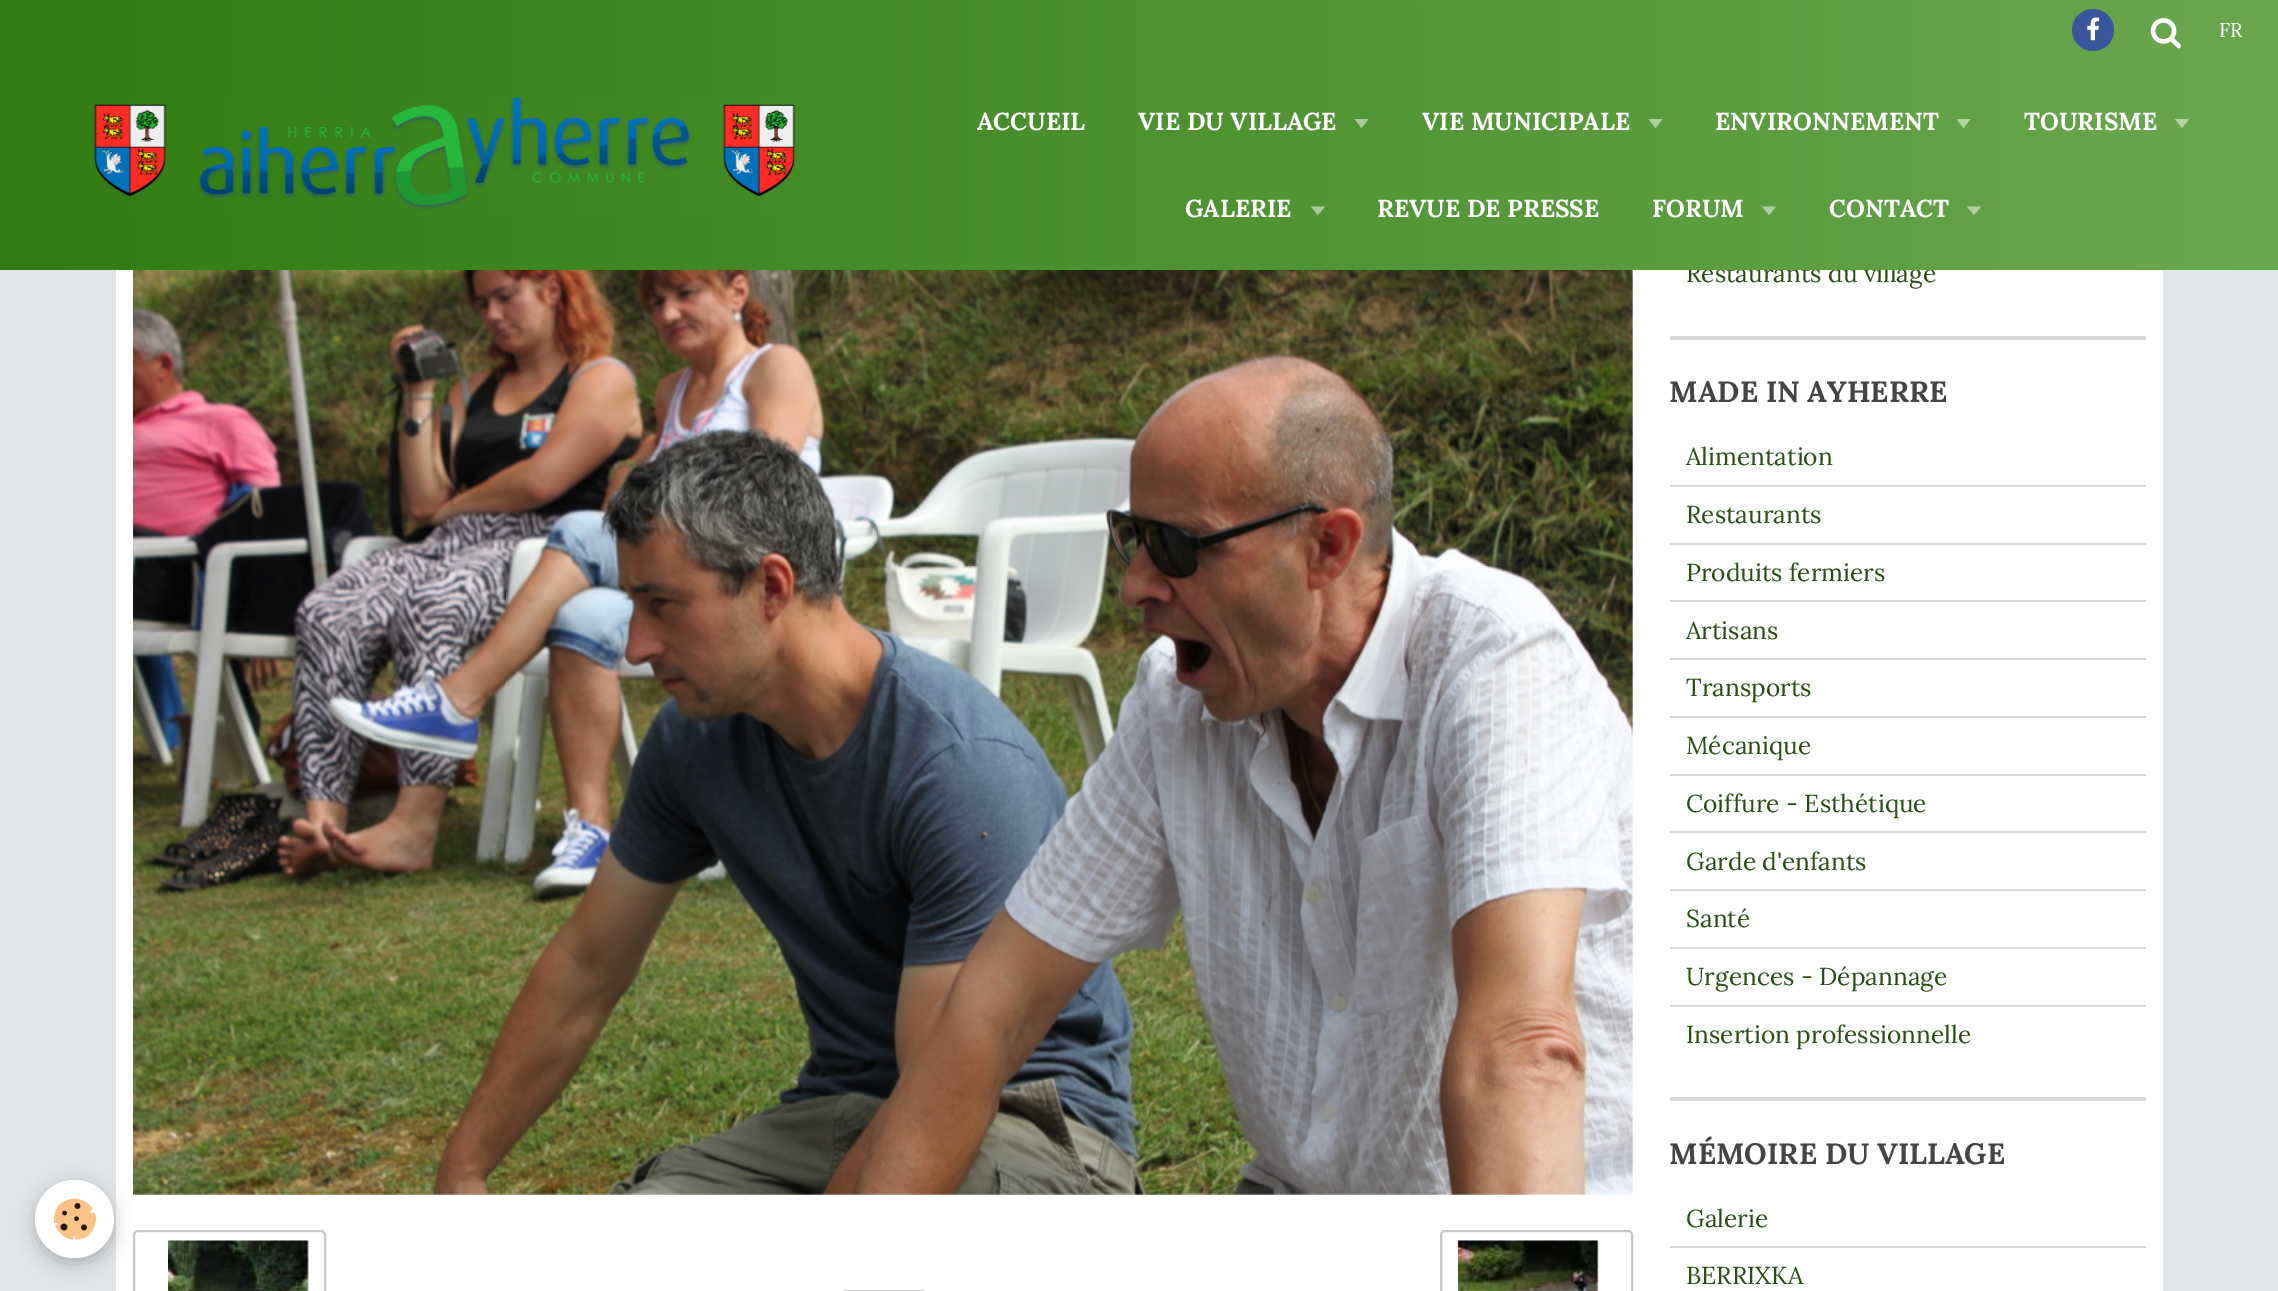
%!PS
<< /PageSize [2278 1291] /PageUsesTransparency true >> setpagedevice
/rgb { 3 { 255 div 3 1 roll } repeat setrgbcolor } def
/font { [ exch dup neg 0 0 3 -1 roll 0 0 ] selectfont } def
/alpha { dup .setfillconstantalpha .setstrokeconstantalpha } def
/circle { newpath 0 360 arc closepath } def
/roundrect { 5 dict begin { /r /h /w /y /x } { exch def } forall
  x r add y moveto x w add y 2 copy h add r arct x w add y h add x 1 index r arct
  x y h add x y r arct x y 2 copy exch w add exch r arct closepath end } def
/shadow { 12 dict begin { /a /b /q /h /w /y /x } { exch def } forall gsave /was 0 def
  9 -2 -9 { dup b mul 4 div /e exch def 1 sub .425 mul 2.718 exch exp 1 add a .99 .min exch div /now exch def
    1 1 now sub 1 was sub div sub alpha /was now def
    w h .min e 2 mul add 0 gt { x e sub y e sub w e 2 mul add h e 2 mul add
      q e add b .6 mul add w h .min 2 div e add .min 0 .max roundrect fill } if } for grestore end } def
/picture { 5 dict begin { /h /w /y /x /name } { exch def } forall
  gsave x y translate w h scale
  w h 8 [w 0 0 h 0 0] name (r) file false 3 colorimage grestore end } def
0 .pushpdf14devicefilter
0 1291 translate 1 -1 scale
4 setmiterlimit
227 230 232 rgb
0 0 2278 1291 rectfill
255 255 255 rgb
116 270 2047 1021 rectfill
(img/5.rgb) 133 270 1500 925 picture
(img/6.rgb) 168 1240 141 51 picture
199 199 199 rgb
2 setlinewidth
134 1231 191 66 4 roundrect stroke
0 0 0 rgb
35 1185 79 79 39.5 9 0.24 shadow
255 255 255 rgb
35 1180 79 78 39 roundrect fill
(img/4.rgb) 53 1198 43 42 picture
[
  [1670 336 476 4 213 217 220]
  [1670 485 476 2 213 217 220]
  [1670 543 476 2 213 217 220]
  [1670 600 476 2 213 217 220]
  [1670 658 476 2 213 217 220]
  [1670 716 476 2 213 217 220]
  [1670 774 476 2 213 217 220]
  [1670 831 476 2 213 217 220]
  [1670 889 476 2 213 217 220]
  [1670 947 476 2 213 217 220]
  [1670 1005 476 2 213 217 220]
  [1670 1097 476 4 213 217 220]
  [1670 1246 476 2 213 217 220]
] { aload pop rgb rectfill } forall
199 199 199 rgb
843 1291 82 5 3 roundrect stroke
(img/7.rgb) 1458 1240 141 51 picture
1441 1231 191 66 4 roundrect stroke
/Lora-Regular 24.5 font
39 78 19 rgb
1686 282 moveto (Restaurants du village) show
gsave 0 0 moveto 2278 0 lineto 2278 270 lineto 0 270 lineto closepath clip newpath
<< /ShadingType 2 /ColorSpace /DeviceRGB /Coords [0 135 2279 135] /Extend [true true] /Function << /FunctionType 2 /Domain [0 1] /C0 [0.188 0.482 0.067] /C1 [0.416 0.659 0.31] /N 1 >> >> shfill grestore
/Lora-Regular 20 font
255 255 255 rgb
2219 37 moveto (FR) show
(img/2.rgb) 2150 18 32 31 picture
56 86 153 rgb
2093 30 21 circle fill
(img/1.rgb) 2087 17 13 24 picture
177 209 163 rgb
1967 206.5 moveto 1981 206.5 lineto 1974 215 lineto closepath fill
/Lora-Bold 24.5 font
255 255 255 rgb
1829 217 moveto (CONTACT) show
174 207 160 rgb
1762 206.5 moveto 1776 206.5 lineto 1769 215 lineto closepath fill
255 255 255 rgb
1652 217 moveto (FORUM) show
1377 217 moveto (REVUE DE PRESSE) show
168 202 154 rgb
1311 206.5 moveto 1325 206.5 lineto 1318 215 lineto closepath fill
255 255 255 rgb
1185 217 moveto (GALERIE) show
179 211 166 rgb
2175 119 moveto 2189 119 lineto 2182 128 lineto closepath fill
255 255 255 rgb
2024 130 moveto (TOURISME) show
177 209 163 rgb
1956.5 119 moveto 1970.5 119 lineto 1963.5 128 lineto closepath fill
255 255 255 rgb
1715 130 moveto (ENVIRONNEMENT) show
173 206 159 rgb
1648.5 119 moveto 1662.5 119 lineto 1655.5 128 lineto closepath fill
255 255 255 rgb
1422 130 moveto (VIE MUNICIPALE) show
169 203 155 rgb
1354.5 119 moveto 1368.5 119 lineto 1361.5 128 lineto closepath fill
255 255 255 rgb
1138 130 moveto (VIE DU VILLAGE) show
977 130 moveto (ACCUEIL) show
(img/3.rgb) 94 97 701 113 picture
/Lora-Bold 29.4 font
68 68 68 rgb
1669 402 moveto (MADE IN AYHERRE) show
/Lora-Regular 24.5 font
39 78 19 rgb
[
  [(Alimentation) 1686 465]
  [(Restaurants) 1686 523]
  [(Produits fermiers) 1686 581]
  [(Artisans) 1686 639]
  [(Transports) 1686 696]
  [(Mécanique) 1686 754]
  [(Coiffure - Esthétique) 1686 812]
  [(Garde d'enfants) 1686 870]
  [(Santé) 1686 927]
  [(Urgences - Dépannage) 1686 985]
  [(Insertion professionnelle) 1686 1043]
] { aload pop moveto show } forall
/Lora-Bold 29.4 font
68 68 68 rgb
1669 1164 moveto (MÉMOIRE DU VILLAGE) show
/Lora-Regular 24.5 font
39 78 19 rgb
1686 1227 moveto (Galerie) show
1686 1284 moveto (BERRIXKA) show
.poppdf14devicefilter showpage
